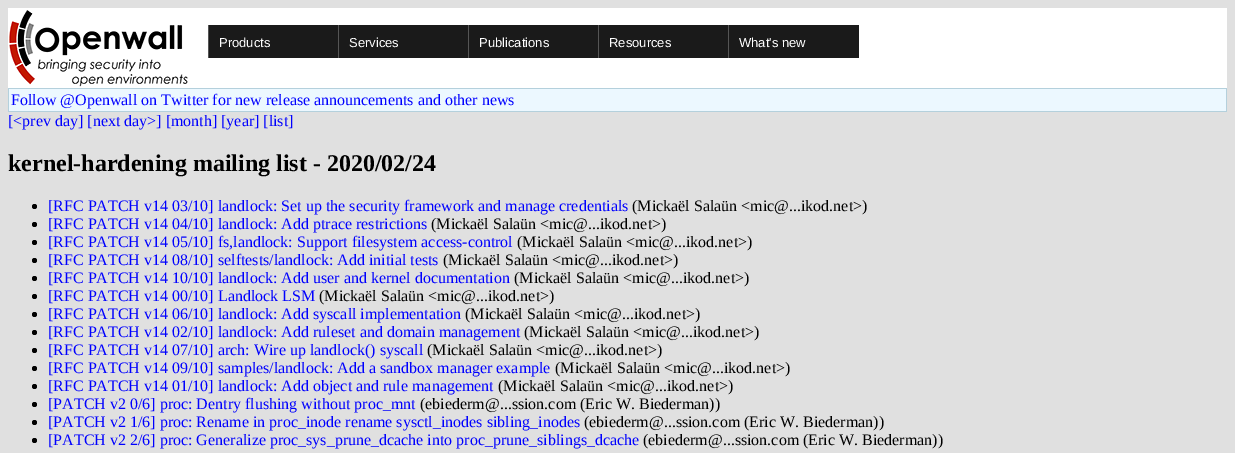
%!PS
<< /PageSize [1235 453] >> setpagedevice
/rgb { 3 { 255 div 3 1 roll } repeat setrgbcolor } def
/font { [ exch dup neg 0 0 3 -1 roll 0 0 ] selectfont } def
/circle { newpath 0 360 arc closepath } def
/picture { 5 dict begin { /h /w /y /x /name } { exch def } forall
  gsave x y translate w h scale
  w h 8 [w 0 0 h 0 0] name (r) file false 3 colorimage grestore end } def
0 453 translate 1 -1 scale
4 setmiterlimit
224 224 224 rgb
0 0 1235 453 rectfill
255 255 255 rgb
8 8 1219 80 rectfill
(img/1.rgb) 9 10 179 77 picture
[
  [209 25 129 33 26 26 26]
  [208 25 1 33 85 85 85]
  [339 25 129 33 26 26 26]
  [338 25 1 33 85 85 85]
  [469 25 129 33 26 26 26]
  [468 25 1 33 85 85 85]
  [599 25 129 33 26 26 26]
  [598 25 1 33 85 85 85]
  [729 25 130 33 26 26 26]
  [728 25 1 33 85 85 85]
  [8 88 1219 24 180 208 220]
  [9 89 1217 22 236 248 255]
] { aload pop rgb rectfill } forall
0 0 0 rgb
34.5 206.5 2.5 circle fill
34.5 224.5 2.5 circle fill
34.5 242.5 2.5 circle fill
34.5 260.5 2.5 circle fill
34.5 278.5 2.5 circle fill
34.5 296.5 2.5 circle fill
34.5 314.5 2.5 circle fill
34.5 332.5 2.5 circle fill
34.5 350.5 2.5 circle fill
34.5 368.5 2.5 circle fill
34.5 386.5 2.5 circle fill
34.5 404.5 2.5 circle fill
34.5 422.5 2.5 circle fill
34.5 440.5 2.5 circle fill
/LiberationSans-Regular 13 font
255 255 255 rgb
[
  [(Products) 219 47]
  [(Services) 349 47]
  [(Publications) 479 47]
  [(Resources) 609 47]
  [(What's new) 739 47]
] { aload pop moveto show } forall
/LiberationSerif-Regular 16 font
0 0 255 rgb
11 105 moveto (Follow @Openwall on Twitter for new release announcements and other news) show
8 126 moveto ([<prev day] [next day>] [month] [year] [list]) show
/LiberationSerif-Bold 24 font
0 0 0 rgb
8 171 moveto (kernel-hardening mailing list - 2020/02/24) show
/LiberationSerif-Regular 16 font
0 0 255 rgb
48 211 moveto ([RFC PATCH v14 03/10] landlock: Set up the security framework and manage credentials) show
0 0 0 rgb
632 211 moveto (\(Mickaël Salaün <mic@...ikod.net>\)) show
0 0 255 rgb
48 229 moveto ([RFC PATCH v14 04/10] landlock: Add ptrace restrictions) show
0 0 0 rgb
431 229 moveto (\(Mickaël Salaün <mic@...ikod.net>\)) show
0 0 255 rgb
48 247 moveto ([RFC PATCH v14 05/10] fs,landlock: Support filesystem access-control) show
0 0 0 rgb
517 247 moveto (\(Mickaël Salaün <mic@...ikod.net>\)) show
0 0 255 rgb
48 265 moveto ([RFC PATCH v14 08/10] selftests/landlock: Add initial tests) show
0 0 0 rgb
443 265 moveto (\(Mickaël Salaün <mic@...ikod.net>\)) show
0 0 255 rgb
48 283 moveto ([RFC PATCH v14 10/10] landlock: Add user and kernel documentation) show
0 0 0 rgb
514 283 moveto (\(Mickaël Salaün <mic@...ikod.net>\)) show
0 0 255 rgb
48 301 moveto ([RFC PATCH v14 00/10] Landlock LSM) show
0 0 0 rgb
319 301 moveto (\(Mickaël Salaün <mic@...ikod.net>\)) show
0 0 255 rgb
48 319 moveto ([RFC PATCH v14 06/10] landlock: Add syscall implementation) show
0 0 0 rgb
465 319 moveto (\(Mickaël Salaün <mic@...ikod.net>\)) show
0 0 255 rgb
48 337 moveto ([RFC PATCH v14 02/10] landlock: Add ruleset and domain management) show
0 0 0 rgb
524 337 moveto (\(Mickaël Salaün <mic@...ikod.net>\)) show
0 0 255 rgb
48 355 moveto ([RFC PATCH v14 07/10] arch: Wire up landlock\(\) syscall) show
0 0 0 rgb
427 355 moveto (\(Mickaël Salaün <mic@...ikod.net>\)) show
0 0 255 rgb
48 373 moveto ([RFC PATCH v14 09/10] samples/landlock: Add a sandbox manager example) show
0 0 0 rgb
555 373 moveto (\(Mickaël Salaün <mic@...ikod.net>\)) show
0 0 255 rgb
48 391 moveto ([RFC PATCH v14 01/10] landlock: Add object and rule management) show
0 0 0 rgb
498 391 moveto (\(Mickaël Salaün <mic@...ikod.net>\)) show
0 0 255 rgb
48 409 moveto ([PATCH v2 0/6] proc: Dentry flushing without proc_mnt) show
0 0 0 rgb
420 409 moveto (\(ebiederm@...ssion.com \(Eric W. Biederman\)\)) show
0 0 255 rgb
48 427 moveto ([PATCH v2 1/6] proc: Rename in proc_inode rename sysctl_inodes sibling_inodes) show
0 0 0 rgb
584 427 moveto (\(ebiederm@...ssion.com \(Eric W. Biederman\)\)) show
0 0 255 rgb
48 445 moveto ([PATCH v2 2/6] proc: Generalize proc_sys_prune_dcache into proc_prune_siblings_dcache) show
0 0 0 rgb
643 445 moveto (\(ebiederm@...ssion.com \(Eric W. Biederman\)\)) show
showpage
